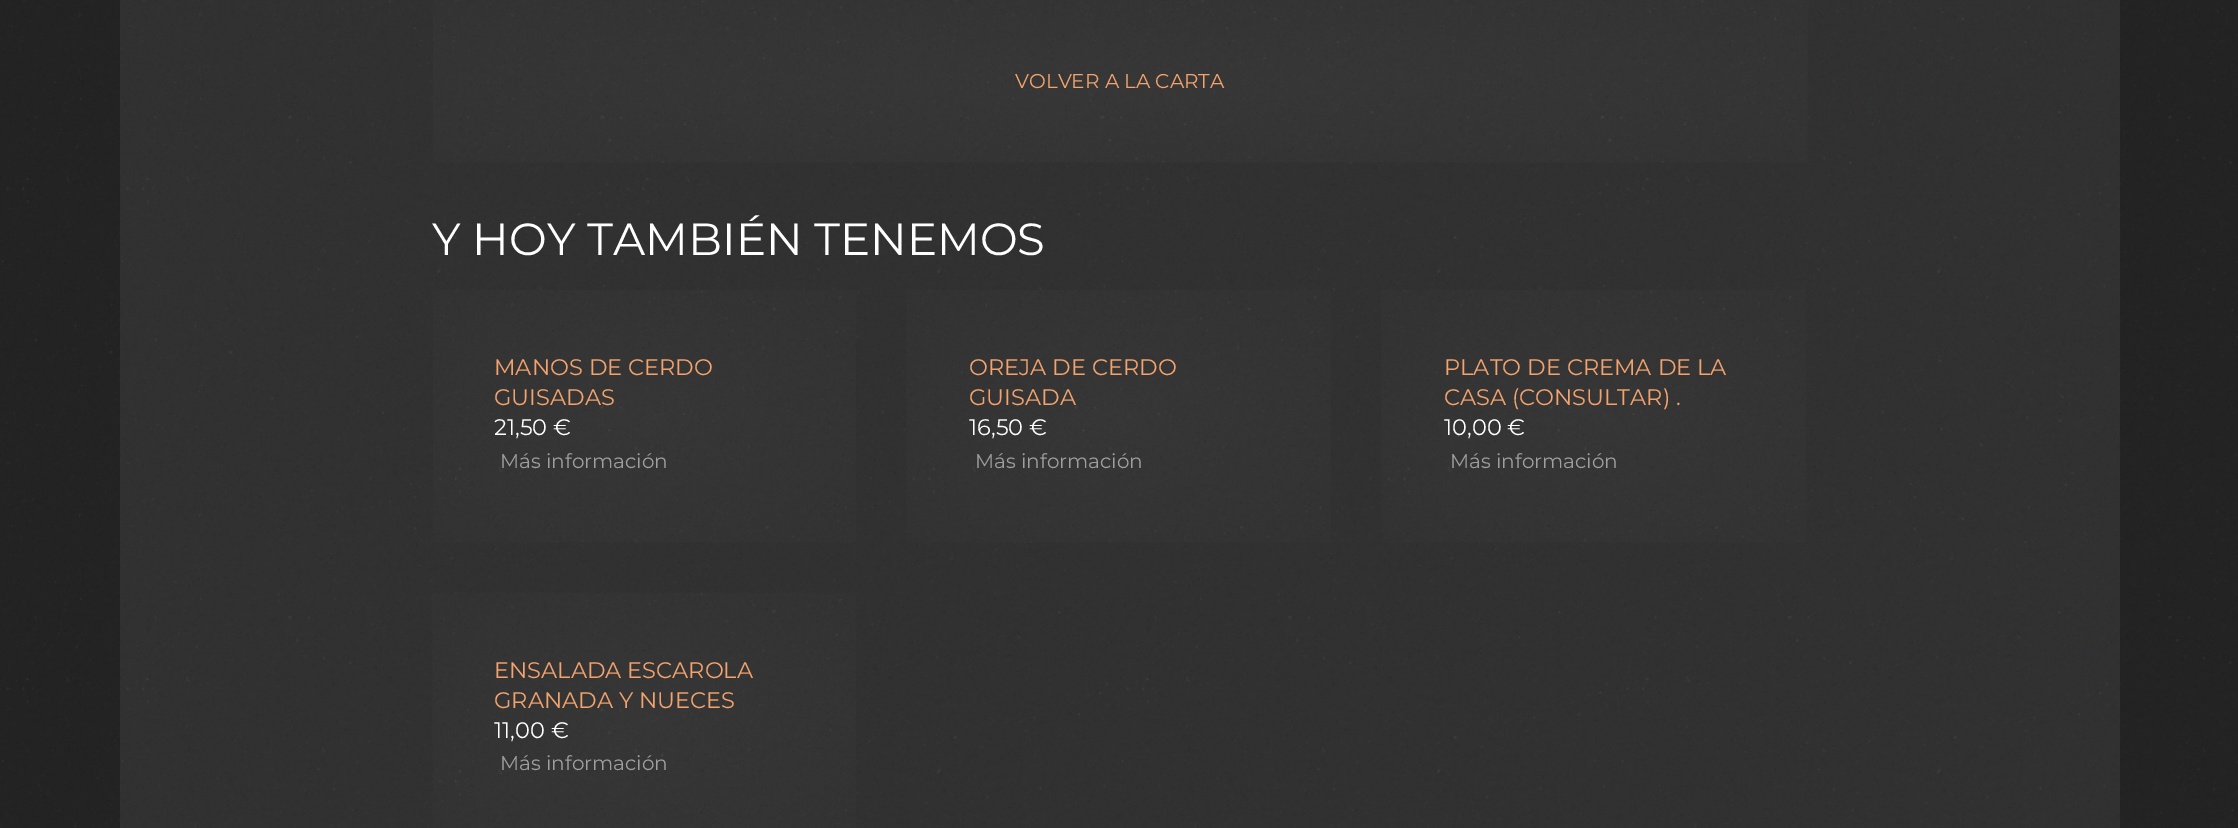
%!PS
<< /PageSize [2238 828] >> setpagedevice
/rgb { 3 { 255 div 3 1 roll } repeat setrgbcolor } def
/font { [ exch dup neg 0 0 3 -1 roll 0 0 ] selectfont } def
/picture { 5 dict begin { /h /w /y /x /name } { exch def } forall
  gsave x y translate w h scale
  w h 8 [w 0 0 h 0 0] name (r) file false 3 colorimage grestore end } def
0 828 translate 1 -1 scale
4 setmiterlimit
35 35 35 rgb
0 0 2238 828 rectfill
(img/1.rgb) 0 0 2238 828 picture
49 49 49 rgb
120 0 2000 828 rectfill
(img/2.rgb) 120 0 2000 828 picture
(img/3.rgb) 433 0 1375 163 picture
(img/4.rgb) 433 290 423 253 picture
(img/5.rgb) 906 290 425 253 picture
(img/6.rgb) 1381 290 425 253 picture
(img/7.rgb) 432 592 424 236 picture
/Montserrat-Thin 20 font
243 163 109 rgb
1015 88 moveto (VOLVER A LA CARTA) show
/Montserrat-Thin 45 font
255 255 255 rgb
432 255 moveto (Y HOY TAMBIÉN TENEMOS) show
/Montserrat-Thin 22.5 font
243 163 109 rgb
494 375 moveto (MANOS DE CERDO) show
494 405 moveto (GUISADAS) show
255 255 255 rgb
494 435 moveto (21,50 €) show
/Montserrat-Thin 20 font
159 159 159 rgb
500 468 moveto (Más información) show
/Montserrat-Thin 22.5 font
243 163 109 rgb
969 375 moveto (OREJA DE CERDO) show
969 405 moveto (GUISADA) show
255 255 255 rgb
969 435 moveto (16,50 €) show
/Montserrat-Thin 20 font
159 159 159 rgb
975 468 moveto (Más información) show
/Montserrat-Thin 22.5 font
243 163 109 rgb
1444 375 moveto (PLATO DE CREMA DE LA) show
1444 405 moveto (CASA \(CONSULTAR\) .) show
255 255 255 rgb
1444 435 moveto (10,00 €) show
/Montserrat-Thin 20 font
159 159 159 rgb
1450 468 moveto (Más información) show
/Montserrat-Thin 22.5 font
243 163 109 rgb
494 678 moveto (ENSALADA ESCAROLA) show
494 708 moveto (GRANADA Y NUECES) show
255 255 255 rgb
494 738 moveto (11,00 €) show
/Montserrat-Thin 20 font
159 159 159 rgb
500 770 moveto (Más información) show
showpage
